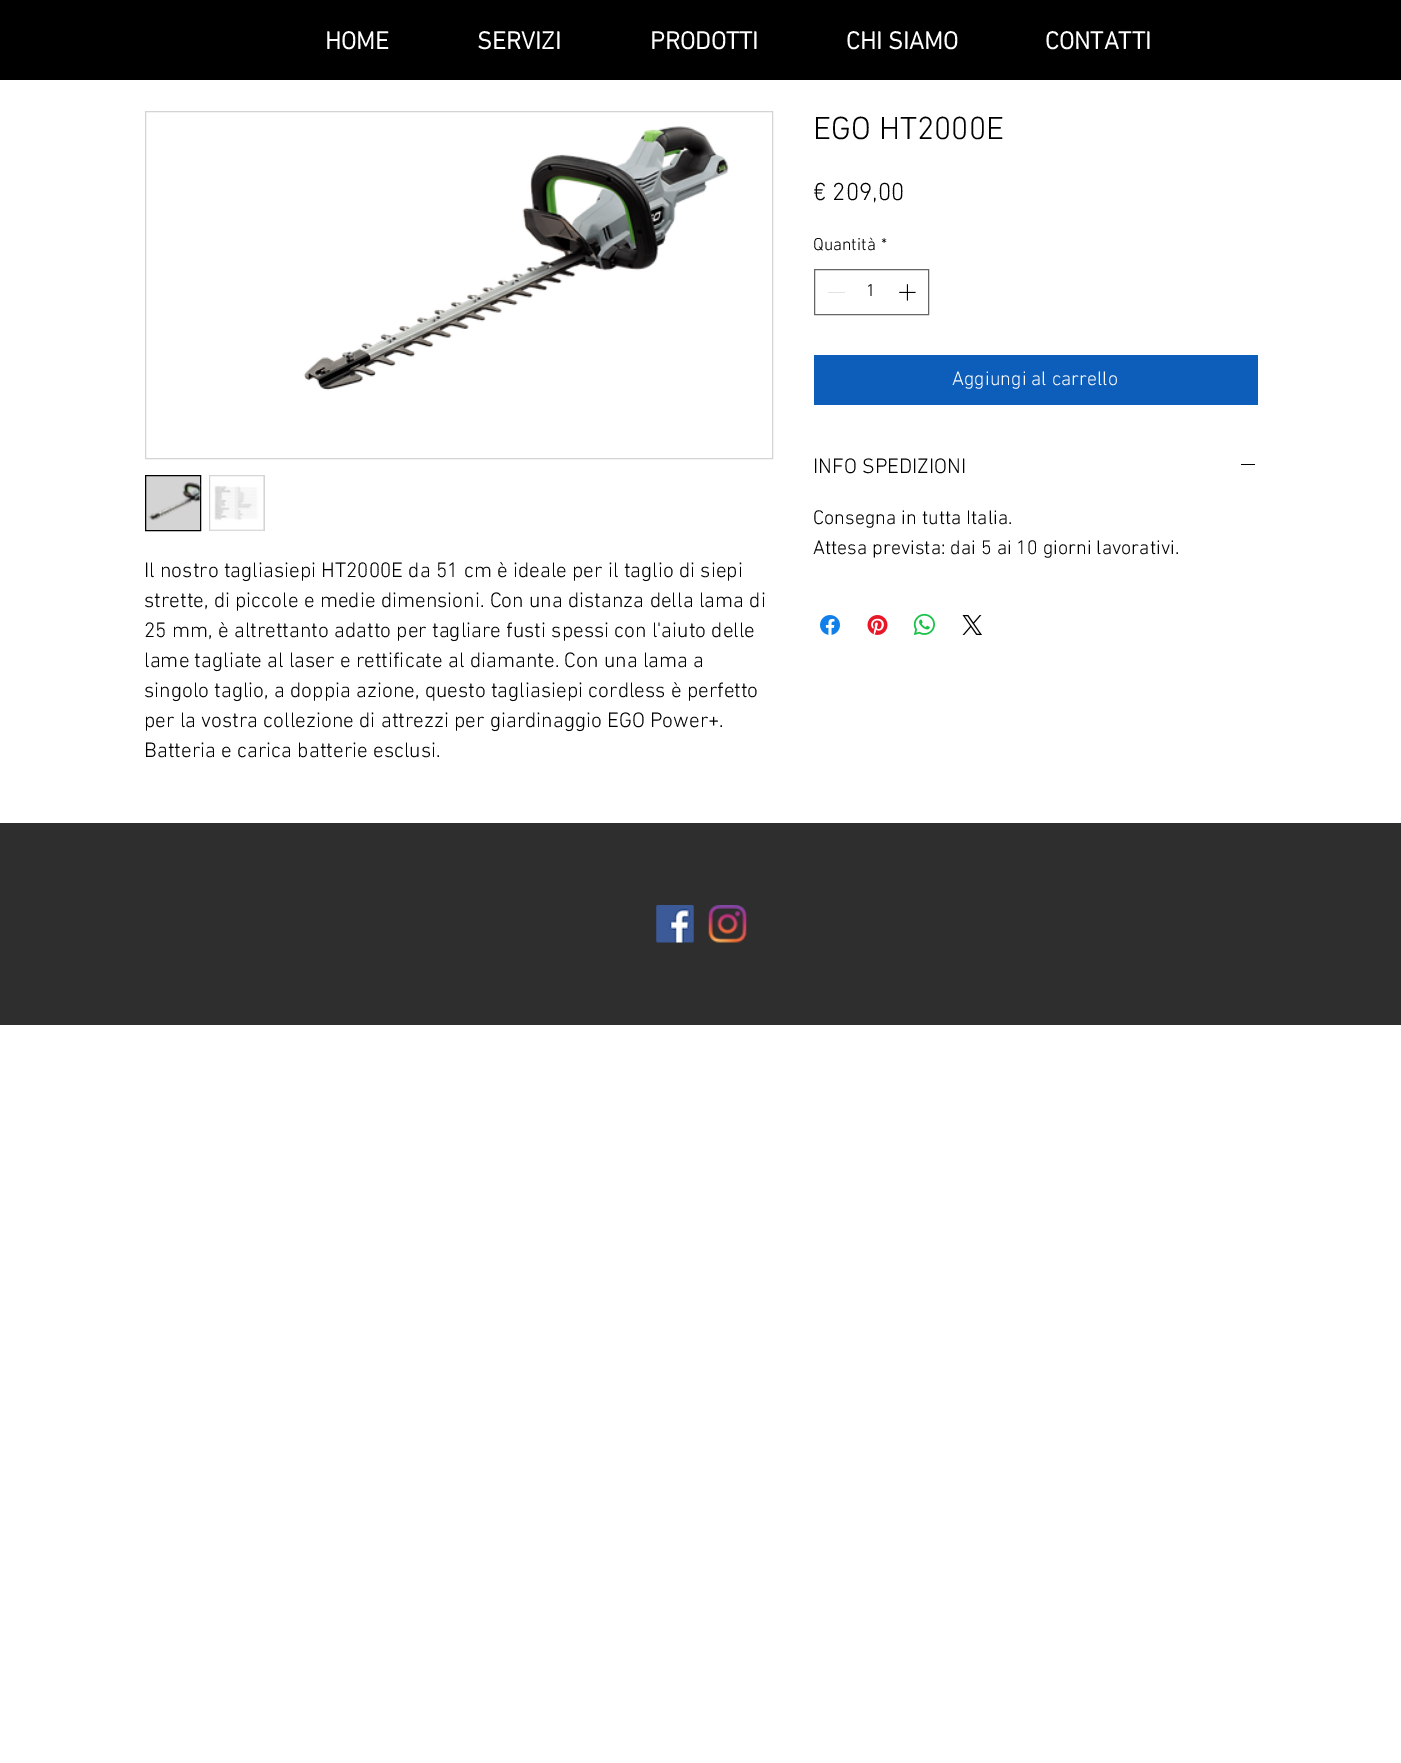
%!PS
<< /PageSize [1401 1763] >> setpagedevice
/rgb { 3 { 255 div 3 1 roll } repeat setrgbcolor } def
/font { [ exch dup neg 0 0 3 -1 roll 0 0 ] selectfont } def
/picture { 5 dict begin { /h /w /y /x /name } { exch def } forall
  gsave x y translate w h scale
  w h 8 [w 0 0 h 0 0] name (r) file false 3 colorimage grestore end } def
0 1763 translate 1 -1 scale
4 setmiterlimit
255 255 255 rgb
0 0 1401 1763 rectfill
0 0 0 rgb
0 0 1401 80 rectfill
102 102 102 rgb
814.5 269.5 114 45 rectstroke
227 227 227 rgb
828 292 17 1 rectfill
(img/1.rgb) 899 284 17 17 picture
13 94 186 rgb
814 355 444 50 rectfill
0 0 0 rgb
1241 464 14 1 rectfill
(img/2.rgb) 820 615 20 20 picture
(img/3.rgb) 867 615 21 20 picture
(img/4.rgb) 913 613 22 22 picture
(img/5.rgb) 962 615 20 20 picture
212 212 212 rgb
145.5 111.5 627 347 rectstroke
(img/6.rgb) 303 126 426 265 picture
145.5 475.5 moveto 200.5 475.5 lineto 200.5 530.5 lineto 145.5 530.5 lineto closepath gsave fill grestore
0 0 0 rgb
stroke
(img/7.rgb) 148 482 53 39 picture
212 212 212 rgb
209 475 56 56 rectfill
(img/8.rgb) 210 476 54 55 picture
47 46 46 rgb
0 823 1401 202 rectfill
(img/9.rgb) 656 905 38 38 picture
(img/10.rgb) 708 905 39 38 picture
/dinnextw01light-Bold 25 font
255 255 255 rgb
[
  [(HOME) 325 49]
  [(SERVIZI) 477 49]
  [(PRODOTTI) 650 49]
  [(CHI SIAMO) 846 49]
  [(CONTATTI) 1045 49]
] { aload pop moveto show } forall
/dinnextw01light-Light 32.5 font
0 0 0 rgb
813 139 moveto (EGO HT2000E) show
/dinnextw01light-Light 25 font
813 200 moveto (€ 209,00) show
/dinnextw01light-Light 17.5 font
[
  [(Quantità) 813 250]
  [(*) 881 250]
  [(1) 866 296]
] { aload pop moveto show } forall
/dinnextw01light-Light 20 font
255 255 255 rgb
952 385 moveto (Aggiungi al carrello) show
/dinnextw01light-Light 21.25 font
0 0 0 rgb
813 473 moveto (INFO SPEDIZIONI) show
/dinnextw01light-Light 20 font
813 524 moveto (Consegna in tutta Italia.) show
813 554 moveto (Attesa prevista: dai 5 ai 10 giorni lavorativi.) show
/dinnextw01light-Light 21.25 font
[
  [(Il nostro tagliasiepi HT2000E da 51 cm è ideale per il taglio di siepi) 144 577]
  [(strette, di piccole e medie dimensioni. Con una distanza della lama di) 144 607]
  [(25 mm, è altrettanto adatto per tagliare fusti spessi con l'aiuto delle) 144 637]
  [(lame tagliate al laser e rettificate al diamante. Con una lama a) 144 667]
  [(singolo taglio, a doppia azione, questo tagliasiepi cordless è perfetto) 144 697]
  [(per la vostra collezione di attrezzi per giardinaggio EGO Power+.) 144 727]
  [(Batteria e carica batterie esclusi.) 144 757]
] { aload pop moveto show } forall
showpage
